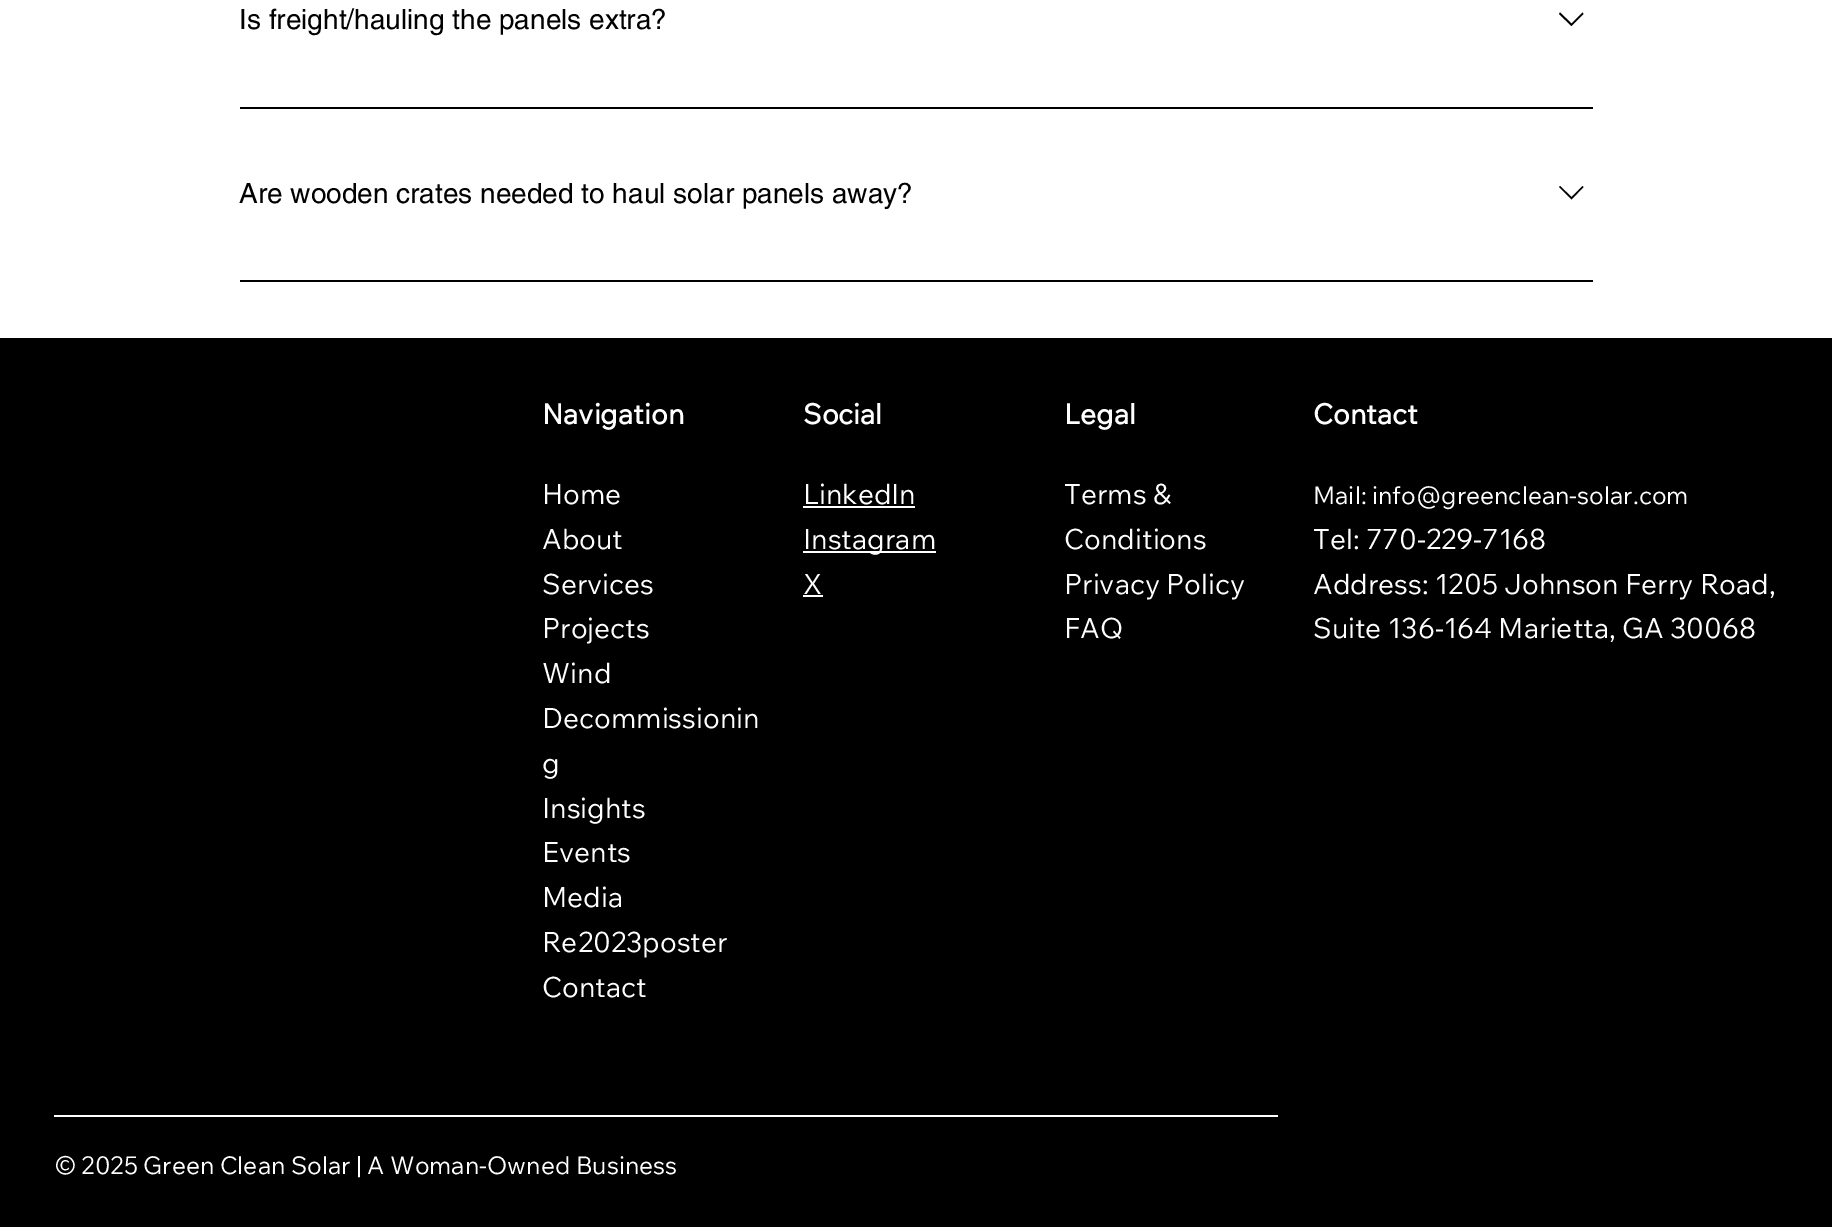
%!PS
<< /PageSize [1832 1227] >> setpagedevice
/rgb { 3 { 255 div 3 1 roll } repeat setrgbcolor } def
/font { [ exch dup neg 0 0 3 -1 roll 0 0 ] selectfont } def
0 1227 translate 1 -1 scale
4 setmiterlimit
255 255 255 rgb
0 0 1832 1227 rectfill
0 0 0 rgb
1582.5 12.5 moveto 1583.5 14 lineto 1571.5 26 lineto 1559 14 lineto 1560 12.5 lineto 1571.5 23.5 lineto closepath eofill
240 107 1353 2 rectfill
1582.5 186 moveto 1583.5 187 lineto 1571.5 199.5 lineto 1559 187 lineto 1560 186 lineto 1571.5 197 lineto closepath eofill
[
  [240 280 1353 2 0 0 0]
  [0 338 1832 889 0 0 0]
  [803 506 112 2 255 255 255]
  [803 551 133 2 255 255 255]
  [803 595 20 2 255 255 255]
  [54 1115 1224 2 255 255 255]
] { aload pop rgb rectfill } forall
/helvetica-Regular 28 font
0 0 0 rgb
239 29 moveto (Is freight/hauling the panels extra?) show
239 203 moveto (Are wooden crates needed to haul solar panels away?) show
/WixMadeforText-Bold 28 font
255 255 255 rgb
542 424 moveto (Navigation) show
/WixMadeforText-Regular 28 font
[
  [(Home) 542 504]
  [(About) 542 549]
  [(Services) 542 594]
  [(Projects) 542 638]
  [(Wind) 542 683]
  [(Decommissionin) 542 728]
  [(g) 542 773]
  [(Insights) 542 818]
  [(Events) 542 862]
  [(Media) 542 907]
  [(Re2023poster) 542 952]
  [(Contact) 542 997]
] { aload pop moveto show } forall
/WixMadeforText-Bold 28 font
803 424 moveto (Social) show
/WixMadeforText-Regular 28 font
[
  [(LinkedIn) 803 504]
  [(Instagram) 803 549]
  [(X) 803 594]
] { aload pop moveto show } forall
/WixMadeforText-Bold 28 font
1064 424 moveto (Legal) show
/WixMadeforText-Regular 28 font
[
  [(Terms &) 1064 504]
  [(Conditions) 1064 549]
  [(Privacy Policy) 1064 594]
  [(FAQ) 1064 638]
] { aload pop moveto show } forall
/WixMadeforText-Bold 28 font
1313 424 moveto (Contact) show
/WixMadeforText-Regular 24.5 font
1313 504 moveto (Mail: info@greenclean-solar.com) show
/WixMadeforText-Regular 28 font
[
  [(Tel: 770-229-7168) 1313 549]
  [(Address: 1205 Johnson Ferry Road,) 1313 594]
  [(Suite 136-164 Marietta, GA 30068) 1313 638]
] { aload pop moveto show } forall
/WixMadeforText-Regular 24.5 font
55 1174 moveto (© 2025 Green Clean Solar | A Woman-Owned Business) show
showpage
